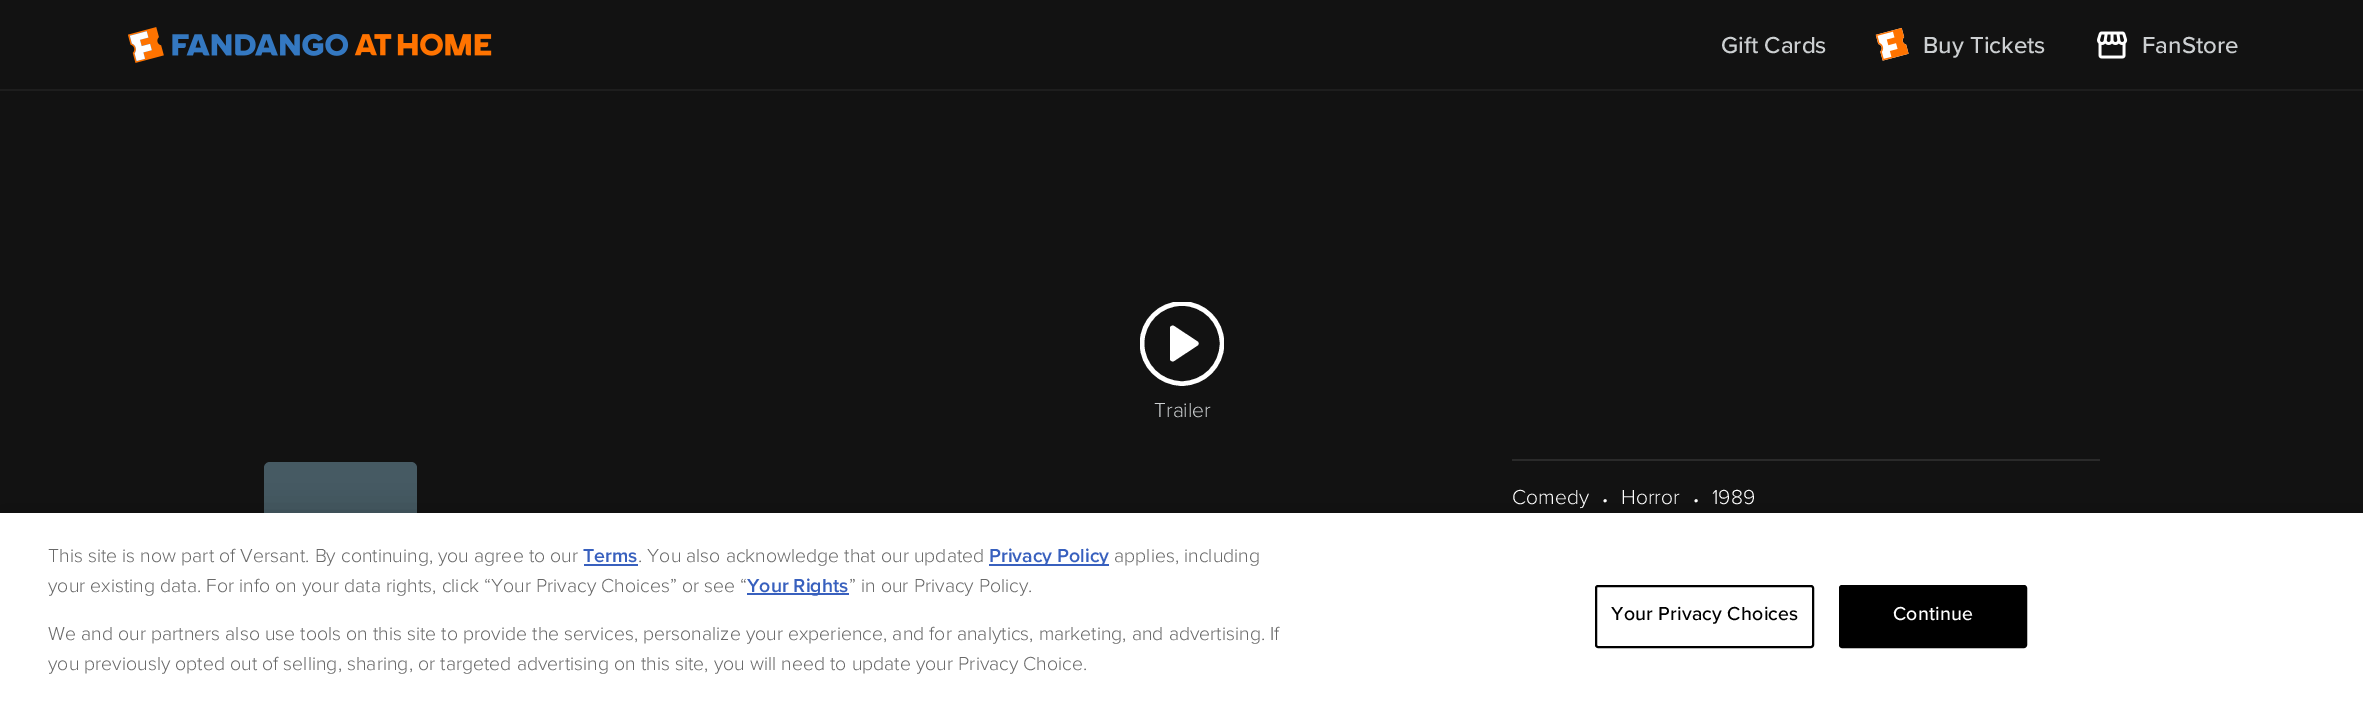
%!PS
<< /PageSize [2363 713] /PageUsesTransparency true >> setpagedevice
/rgb { 3 { 255 div 3 1 roll } repeat setrgbcolor } def
/font { [ exch dup neg 0 0 3 -1 roll 0 0 ] selectfont } def
/alpha { dup .setfillconstantalpha .setstrokeconstantalpha } def
/circle { newpath 0 360 arc closepath } def
/roundrect { 5 dict begin { /r /h /w /y /x } { exch def } forall
  x r add y moveto x w add y 2 copy h add r arct x w add y h add x 1 index r arct
  x y h add x y r arct x y 2 copy exch w add exch r arct closepath end } def
/shadow { 12 dict begin { /a /b /q /h /w /y /x } { exch def } forall gsave /was 0 def
  9 -2 -9 { dup b mul 4 div /e exch def 1 sub .425 mul 2.718 exch exp 1 add a .99 .min exch div /now exch def
    1 1 now sub 1 was sub div sub alpha /was now def
    w h .min e 2 mul add 0 gt { x e sub y e sub w e 2 mul add h e 2 mul add
      q e add b .6 mul add w h .min 2 div e add .min 0 .max roundrect fill } if } for grestore end } def
/picture { 5 dict begin { /h /w /y /x /name } { exch def } forall
  gsave x y translate w h scale
  w h 8 [w 0 0 h 0 0] name (r) file false 3 colorimage grestore end } def
0 .pushpdf14devicefilter
0 713 translate 1 -1 scale
4 setmiterlimit
18 18 18 rgb
0 0 2363 713 rectfill
30 30 30 rgb
0 89 2363 2 rectfill
(img/1.rgb) 128 27 364 36 picture
(img/2.rgb) 1875 27 34 34 picture
(img/3.rgb) 2097 31 31 28 picture
gsave
1140 302 84 84 rectclip
255 255 255 rgb
4.5 setlinewidth
1182 343.5 40 circle stroke
grestore
255 255 255 rgb
1197.5 341.5 moveto 1174 326 lineto 1172.5 325 1170 326 1170 328 curveto 1170 359 lineto 1170 361 1172.5 362 1174 361 curveto 1197.5 345.5 lineto 1199 344.5 1199 342.5 1197.5 341.5 curveto closepath eofill
70 90 99 rgb
264 462 153 222 6 roundrect fill
42 42 42 rgb
1512 459 588 2 rectfill
0 0 0 rgb
0 513 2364 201 0 13.5 0.2 shadow
[
  [0 513 2363 200 255 255 255]
  [584 564 54 2 56 96 190]
  [989 564 120 2 56 96 190]
  [747 593 102 2 56 96 190]
] { aload pop rgb rectfill } forall
0 0 0 rgb
2 setlinewidth
1596 586 217 61 2 roundrect stroke
1840 586 186 61 2 roundrect gsave fill grestore
stroke
/ProximaNova-Medium 24 font
204 207 209 rgb
[
  [(Gift Cards) 1721 53]
  [(Buy Tickets) 1923 53]
  [(FanStore) 2142 53]
] { aload pop moveto show } forall
/ProximaNova-Light 21 font
1154 417 moveto (Trailer) show
255 255 255 rgb
1512 504 moveto (Comedy) show
/ProximaNova-Light 38 font
1601 510 moveto (·) show
/ProximaNova-Light 21 font
1621 504 moveto (Horror) show
/ProximaNova-Light 38 font
1692 510 moveto (·) show
/ProximaNova-Light 21 font
1712 504 moveto (1989) show
/ProximaNova-Light 19.5 font
105 105 105 rgb
48 562 moveto (This site is now part of Versant. By continuing, you agree to our) show
/ProximaNova-SemiBold 19.5 font
56 96 190 rgb
583 562 moveto (Terms) show
/ProximaNova-Light 19.5 font
105 105 105 rgb
638 562 moveto (. You also acknowledge that our updated) show
/ProximaNova-SemiBold 19.5 font
56 96 190 rgb
989 562 moveto (Privacy Policy) show
/ProximaNova-Light 19.5 font
105 105 105 rgb
1114 562 moveto (applies, including) show
48 592 moveto (your existing data. For info on your data rights, click “Your Privacy Choices” or see “) show
/ProximaNova-SemiBold 19.5 font
56 96 190 rgb
747 592 moveto (Your Rights) show
/ProximaNova-Light 19.5 font
105 105 105 rgb
[
  [(” in our Privacy Policy.) 849 592]
  [(We and our partners also use tools on this site to provide the services, personalize your experience, and for analytics, marketing, and advertising. If) 48 640]
  [(you previously opted out of selling, sharing, or targeted advertising on this site, you will need to update your Privacy Choice.) 48 670]
] { aload pop moveto show } forall
/ProximaNova-Medium 19.5 font
0 0 0 rgb
1611 620 moveto 0.25 0 (Your Privacy Choices) ashow
255 255 255 rgb
1893 620 moveto 0.25 0 (Continue) ashow
.poppdf14devicefilter showpage
